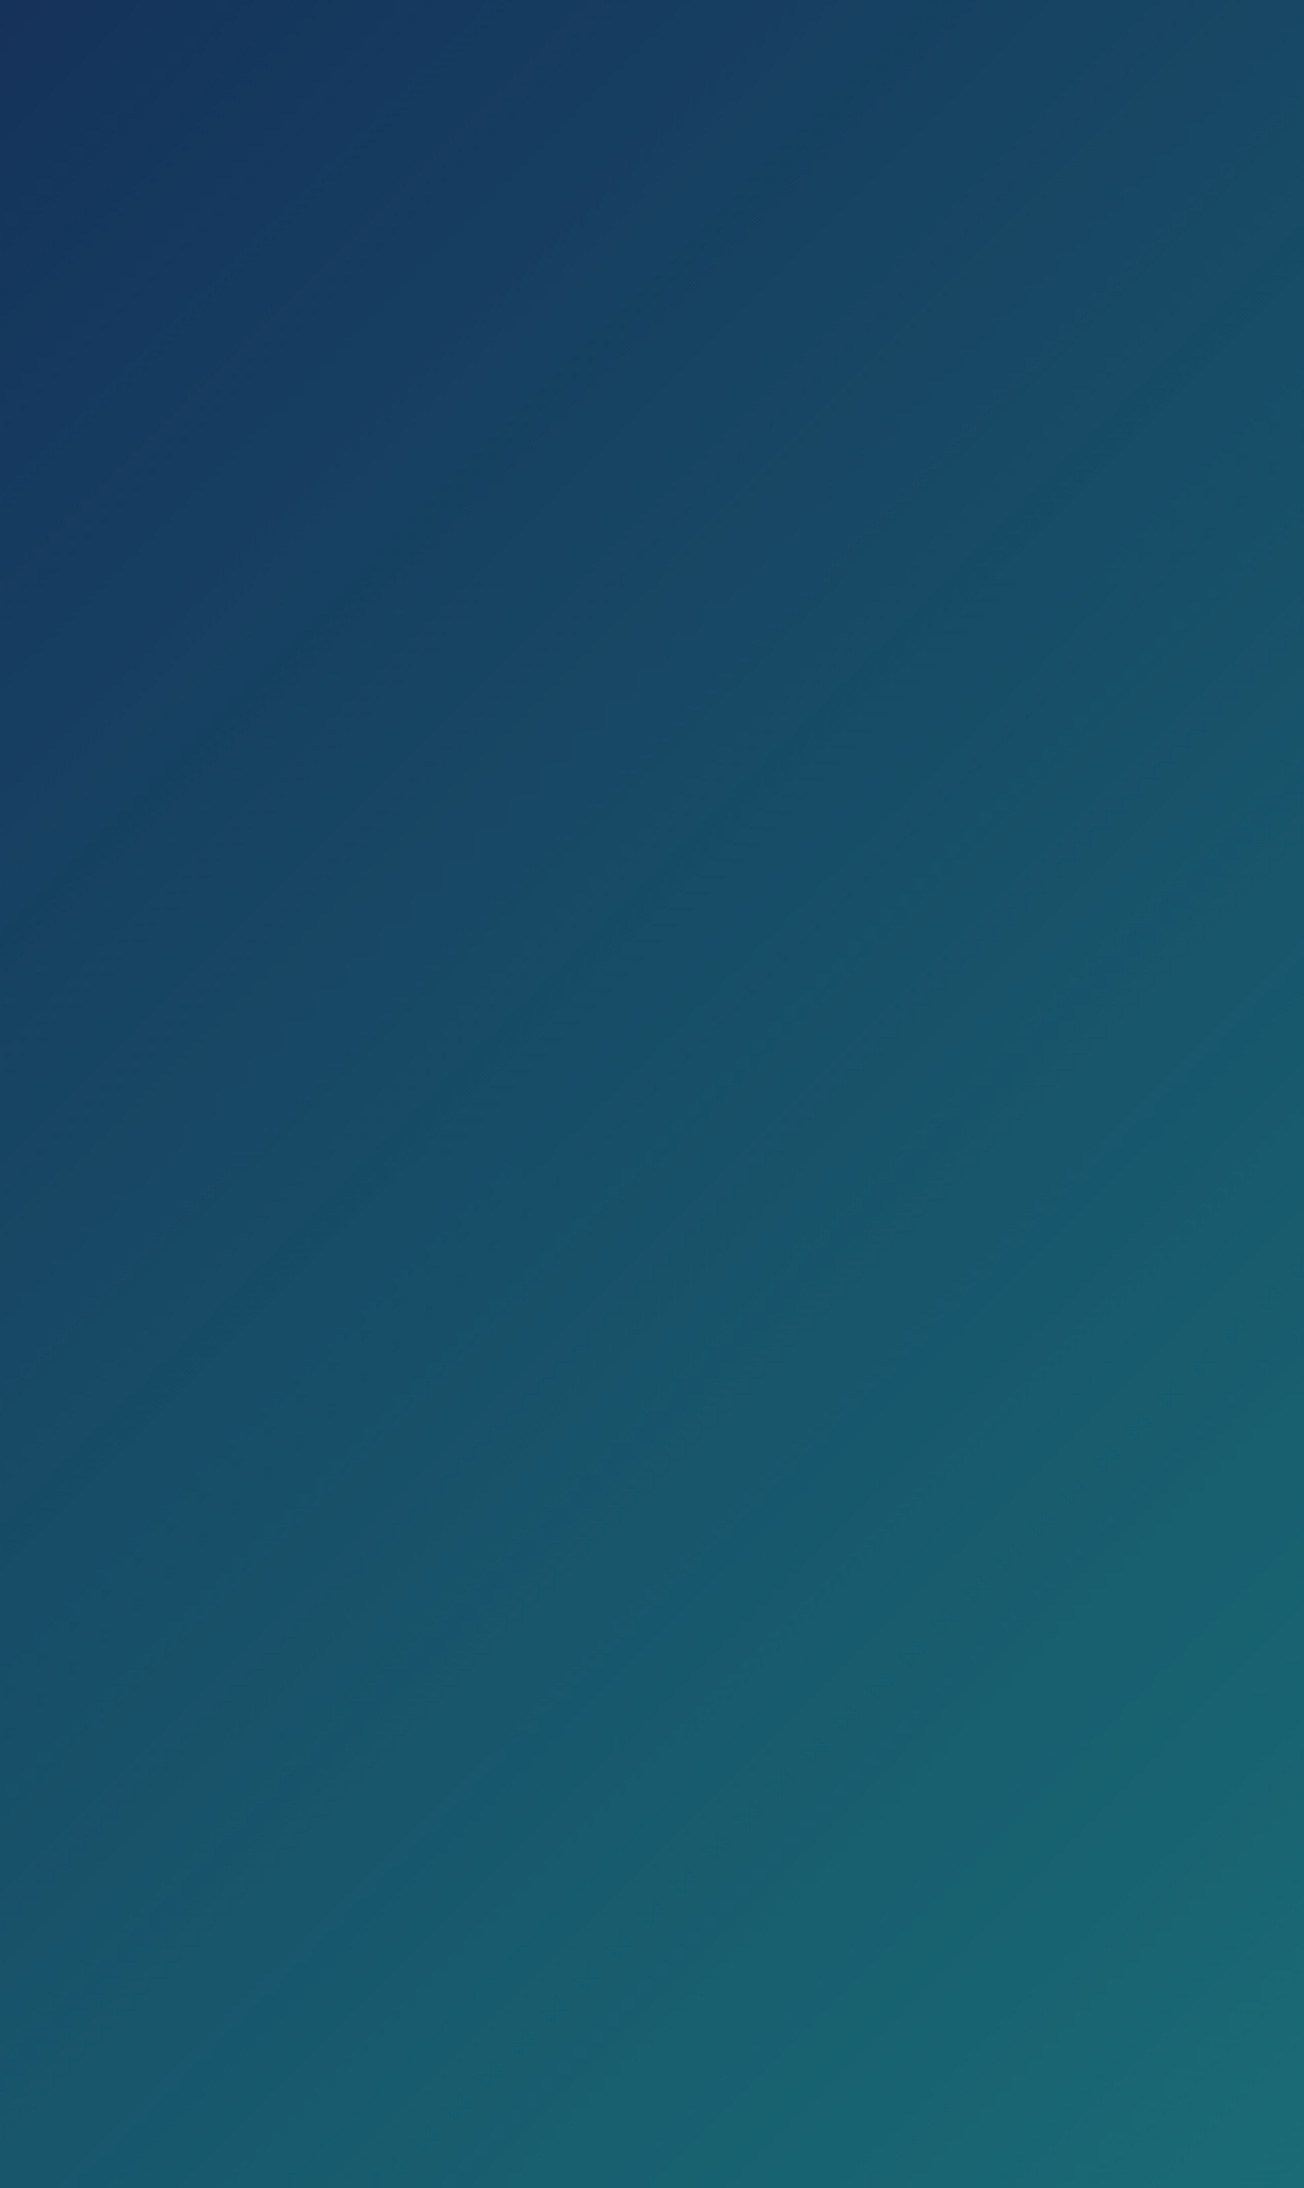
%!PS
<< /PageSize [1304 2188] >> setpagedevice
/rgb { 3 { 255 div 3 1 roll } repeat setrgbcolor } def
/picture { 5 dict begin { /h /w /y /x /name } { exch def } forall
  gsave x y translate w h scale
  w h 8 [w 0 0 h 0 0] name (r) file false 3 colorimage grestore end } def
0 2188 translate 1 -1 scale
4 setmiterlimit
255 255 255 rgb
0 0 1304 2188 rectfill
(img/1.rgb) 0 0 1304 2188 picture
showpage
